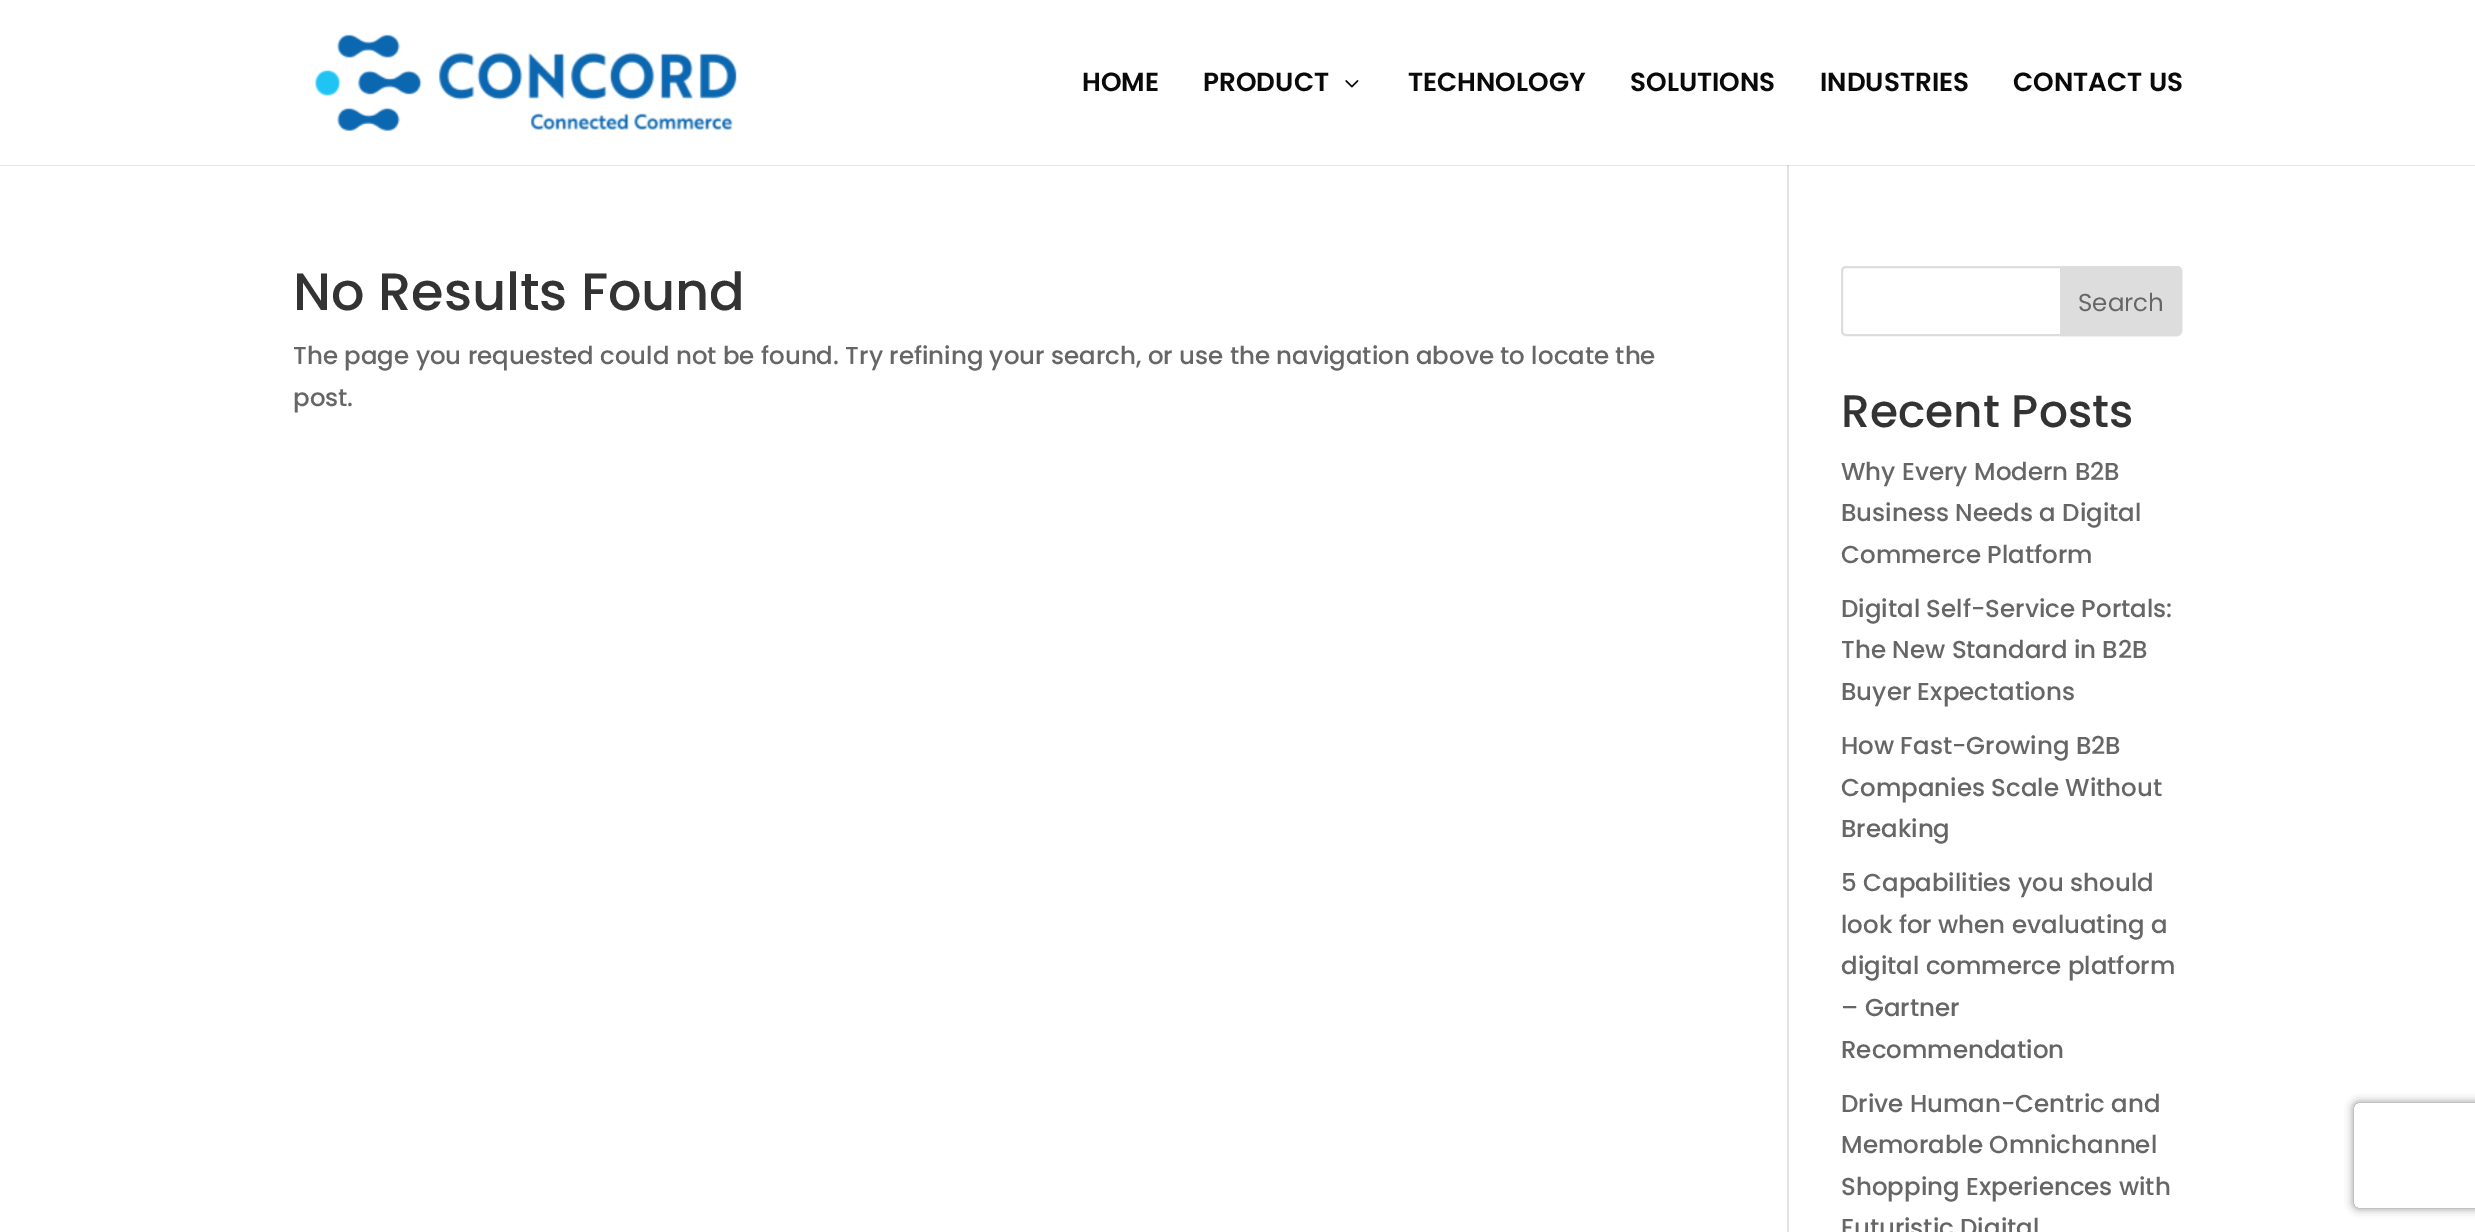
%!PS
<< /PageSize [2475 1232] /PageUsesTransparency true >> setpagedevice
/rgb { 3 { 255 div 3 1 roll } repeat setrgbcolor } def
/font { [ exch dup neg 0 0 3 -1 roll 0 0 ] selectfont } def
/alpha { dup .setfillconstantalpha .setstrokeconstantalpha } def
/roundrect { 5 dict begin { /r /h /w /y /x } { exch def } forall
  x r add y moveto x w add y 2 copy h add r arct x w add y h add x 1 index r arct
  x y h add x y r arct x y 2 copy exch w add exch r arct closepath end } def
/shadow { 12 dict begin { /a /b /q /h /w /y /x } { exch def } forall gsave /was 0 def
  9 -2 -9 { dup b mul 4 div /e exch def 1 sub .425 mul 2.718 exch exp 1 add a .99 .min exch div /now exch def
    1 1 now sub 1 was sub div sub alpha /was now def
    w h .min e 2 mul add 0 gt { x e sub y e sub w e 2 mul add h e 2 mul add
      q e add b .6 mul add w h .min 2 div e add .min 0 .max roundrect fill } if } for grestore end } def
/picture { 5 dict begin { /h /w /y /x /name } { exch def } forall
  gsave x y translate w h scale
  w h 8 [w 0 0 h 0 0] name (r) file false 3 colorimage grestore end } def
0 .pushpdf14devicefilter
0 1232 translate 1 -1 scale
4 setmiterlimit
255 255 255 rgb
0 0 2475 1232 rectfill
230 230 230 rgb
0 165 2475 1 rectfill
(img/1.rgb) 315 34 422 97 picture
(img/2.rgb) 1345 80 14 8 picture
226 226 226 rgb
1787 165 2 1067 rectfill
203 203 203 rgb
1787 165 2 1 rectfill
221 221 221 rgb
2 setlinewidth
1842 267 339 68 4 roundrect stroke
2061 267 moveto 2177 267 lineto 2179 267 2181 269 2181 271 curveto 2181 331 lineto 2181 333 2179 335 2177 335 curveto 2061 335 lineto closepath gsave fill grestore
stroke
gsave
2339 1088 moveto 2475 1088 lineto 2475 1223 lineto 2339 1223 lineto closepath 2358 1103 moveto 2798 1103 lineto 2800 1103 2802 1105 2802 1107 curveto 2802 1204 lineto 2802 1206 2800 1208 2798 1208 curveto 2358 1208 lineto 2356 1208 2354 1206 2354 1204 curveto 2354 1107 lineto 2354 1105 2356 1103 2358 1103 curveto closepath eoclip newpath
128 128 128 rgb
2354 1103 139 105 4 4.5 1 shadow
grestore
/Poppins-SemiBold 26.25 font
10 10 10 rgb
[
  [(HOME) 1082 91]
  [(PRODUCT) 1203 91]
  [(TECHNOLOGY) 1408 91]
  [(SOLUTIONS) 1630 91]
  [(INDUSTRIES) 1820 91]
  [(CONTACT US) 2013 91]
] { aload pop moveto show } forall
/Poppins-Medium 52.5 font
51 51 51 rgb
293 310 moveto (No Results Found) show
/Poppins-Medium 24.5 font
102 102 102 rgb
293 364 moveto (The page you requested could not be found. Try refining your search, or use the navigation above to locate the) show
293 406 moveto (post.) show
/Poppins-Regular 24.5 font
2078 311 moveto (Search) show
/Poppins-Medium 45.5 font
51 51 51 rgb
1841 427 moveto (Recent Posts) show
/Poppins-Medium 24.5 font
102 102 102 rgb
[
  [(Why Every Modern B2B) 1841 480]
  [(Business Needs a Digital) 1841 521]
  [(Commerce Platform) 1841 563]
  [(Digital Self-Service Portals:) 1841 617]
  [(The New Standard in B2B) 1841 658]
  [(Buyer Expectations) 1841 700]
  [(How Fast-Growing B2B) 1841 754]
  [(Companies Scale Without) 1841 796]
  [(Breaking) 1841 837]
  [(5 Capabilities you should) 1841 891]
  [(look for when evaluating a) 1841 933]
  [(digital commerce platform) 1841 974]
  [(– Gartner) 1841 1016]
  [(Recommendation) 1841 1058]
  [(Drive Human-Centric and) 1841 1112]
  [(Memorable Omnichannel) 1841 1153]
  [(Shopping Experiences with) 1841 1195]
  [(Futuristic Digital) 1841 1236]
] { aload pop moveto show } forall
.poppdf14devicefilter showpage
